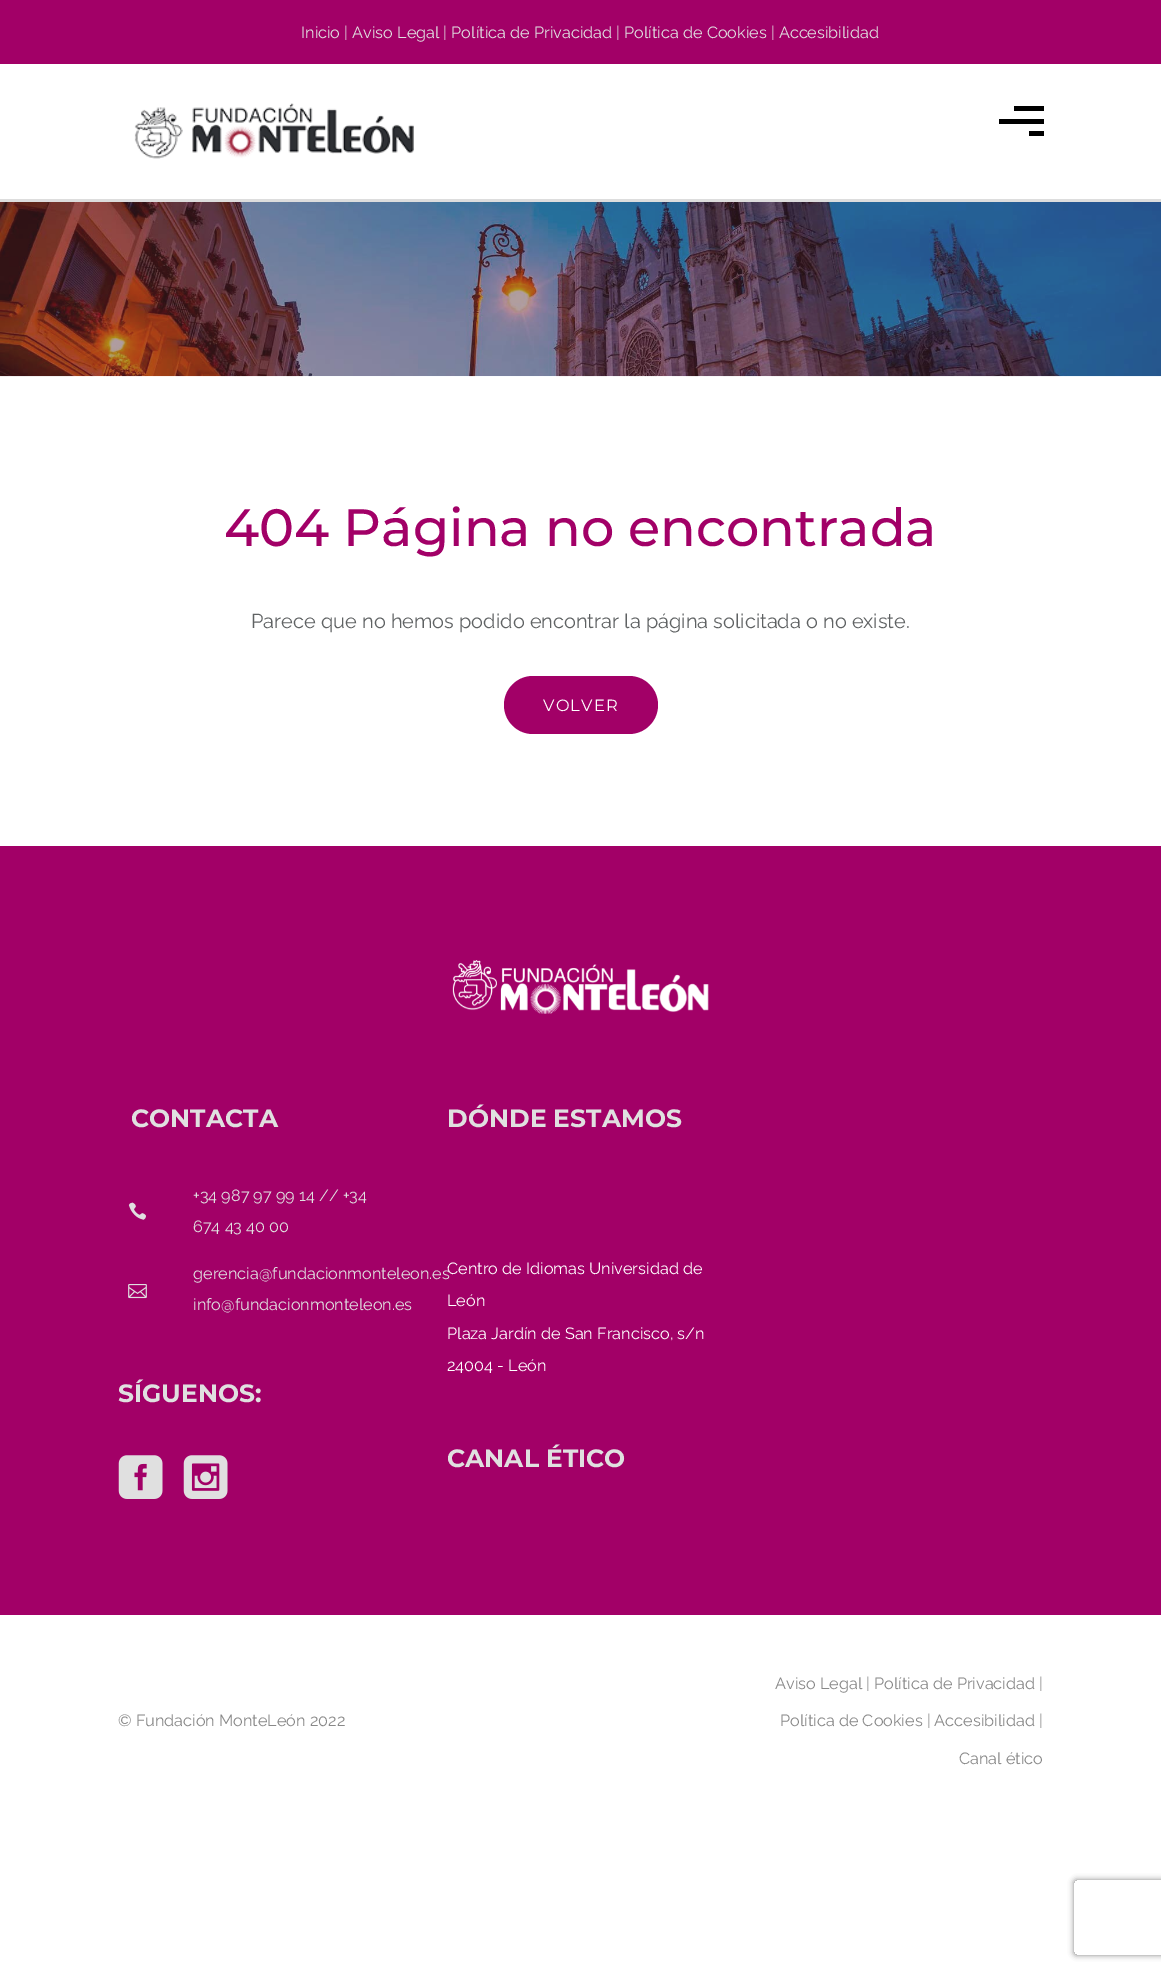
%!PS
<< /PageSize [1161 1972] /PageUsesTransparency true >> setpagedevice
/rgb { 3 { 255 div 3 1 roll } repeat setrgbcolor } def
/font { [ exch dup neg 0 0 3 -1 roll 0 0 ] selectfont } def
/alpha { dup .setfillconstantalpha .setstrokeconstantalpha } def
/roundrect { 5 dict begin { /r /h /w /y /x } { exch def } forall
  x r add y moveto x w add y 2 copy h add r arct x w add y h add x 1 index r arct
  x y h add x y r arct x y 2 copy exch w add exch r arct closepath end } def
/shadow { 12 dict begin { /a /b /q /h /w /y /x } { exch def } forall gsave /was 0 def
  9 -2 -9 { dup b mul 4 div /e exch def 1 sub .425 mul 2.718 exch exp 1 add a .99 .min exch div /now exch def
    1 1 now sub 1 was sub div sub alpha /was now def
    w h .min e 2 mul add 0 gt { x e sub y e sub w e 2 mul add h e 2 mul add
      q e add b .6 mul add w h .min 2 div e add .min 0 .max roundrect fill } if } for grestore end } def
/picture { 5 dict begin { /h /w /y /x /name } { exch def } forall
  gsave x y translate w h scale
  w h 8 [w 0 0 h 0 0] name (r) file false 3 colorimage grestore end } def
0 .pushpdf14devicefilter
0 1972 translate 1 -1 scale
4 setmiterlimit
255 255 255 rgb
0 0 1161 1972 rectfill
162 0 103 rgb
0 0 1161 64 rectfill
(img/1.rgb) 134 103 280 56 picture
[
  [1014 106 30 5 0 0 0]
  [999 119 45 5 0 0 0]
  [1029 131 15 5 0 0 0]
  [0 199 1161 3 221 221 221]
] { aload pop rgb rectfill } forall
(img/2.rgb) 0 202 1161 175 picture
162 0 103 rgb
504 676 154 58 29 roundrect fill
0 846 1161 769 rectfill
(img/3.rgb) 452 960 257 54 picture
(img/4.rgb) 128 1202 18 18 picture
(img/5.rgb) 128 1284 19 15 picture
(img/6.rgb) 118 1455 45 44 picture
(img/7.rgb) 183 1455 45 44 picture
gsave
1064 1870 moveto 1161 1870 lineto 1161 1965 lineto 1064 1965 lineto closepath 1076.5 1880 moveto 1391.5 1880 lineto 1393 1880 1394 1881 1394 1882.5 curveto 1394 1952.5 lineto 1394 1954 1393 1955 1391.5 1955 curveto 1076.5 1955 lineto 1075 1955 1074 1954 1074 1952.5 curveto 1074 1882.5 lineto 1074 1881 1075 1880 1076.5 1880 curveto closepath eoclip newpath
128 128 128 rgb
1074 1880 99 75 2.5 3 1 shadow
grestore
/Raleway-Regular 16.25 font
224 224 224 rgb
301 38 moveto (Inicio | Aviso Legal | Política de Privacidad | Política de Cookies | Accesibilidad) show
/Montserrat-Medium 52.5 font
162 0 103 rgb
224 546 moveto (404 Página no encontrada) show
/Raleway-Regular 20 font
95 98 99 rgb
251 628 moveto (Parece que no hemos podido encontrar la página solicitada o no existe.) show
/Montserrat-Regular 16.25 font
255 255 255 rgb
543 711 moveto 1.25 0 (VOLVER) ashow
/Montserrat-Bold 25 font
224 224 224 rgb
131 1127 moveto (CONTACTA) show
/Raleway-Regular 16.25 font
[
  [(+34 987 97 99 14 // +34) 193 1201]
  [(674 43 40 00) 193 1232]
  [(gerencia@fundacionmonteleon.es) 193 1279]
  [(info@fundacionmonteleon.es) 193 1310]
] { aload pop moveto show } forall
/Montserrat-Bold 25 font
118 1402 moveto (SÍGUENOS:) show
447 1127 moveto (DÓNDE ESTAMOS) show
/Raleway-Regular 16.25 font
255 255 255 rgb
[
  [(Centro de Idiomas Universidad de) 447 1274]
  [(León) 447 1306]
  [(Plaza Jardín de San Francisco, s/n) 447 1339]
  [(24004 - León) 447 1371]
] { aload pop moveto show } forall
/Montserrat-Bold 25 font
224 224 224 rgb
447 1467 moveto (CANAL ÉTICO) show
/Raleway-Regular 16.25 font
136 136 136 rgb
[
  [(© Fundación MonteLeón 2022) 118 1726]
  [(Aviso Legal | Política de Privacidad |) 775 1689]
  [(Política de Cookies | Accesibilidad |) 780 1726]
  [(Canal ético) 959 1764]
] { aload pop moveto show } forall
.poppdf14devicefilter showpage
